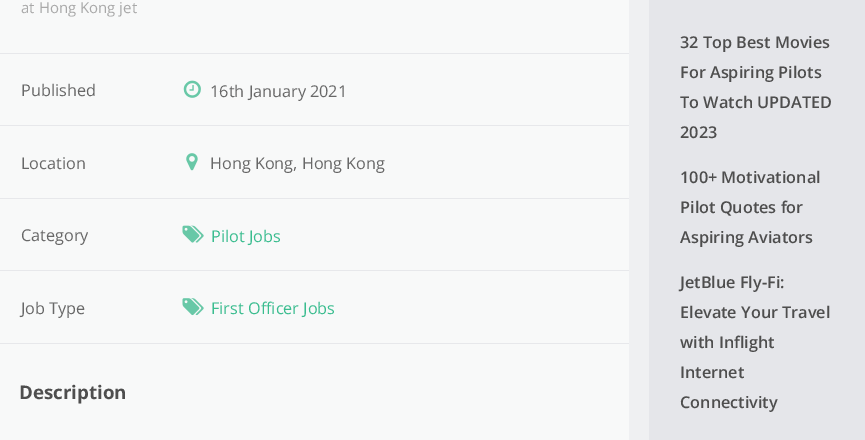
%!PS
<< /PageSize [865 440] >> setpagedevice
/rgb { 3 { 255 div 3 1 roll } repeat setrgbcolor } def
/font { [ exch dup neg 0 0 3 -1 roll 0 0 ] selectfont } def
/picture { 5 dict begin { /h /w /y /x /name } { exch def } forall
  gsave x y translate w h scale
  w h 8 [w 0 0 h 0 0] name (r) file false 3 colorimage grestore end } def
0 440 translate 1 -1 scale
4 setmiterlimit
239 240 242 rgb
0 0 865 440 rectfill
[
  [0 0 629 440 248 249 249]
  [0 53 629 1 231 232 235]
  [0 125 629 1 231 232 235]
] { aload pop rgb rectfill } forall
(img/1.rgb) 183 80 18 18 picture
0 198 629 1 rectfill
(img/2.rgb) 186 153 12 18 picture
0 270 629 1 rectfill
(img/3.rgb) 182 225 22 18 picture
0 343 629 1 rectfill
(img/4.rgb) 182 298 22 18 picture
229 230 234 rgb
649 0 216 440 rectfill
/OpenSans-Regular 15 font
169 169 169 rgb
21 13 moveto (at Hong Kong jet) show
/OpenSans-Regular 16.25 font
104 104 104 rgb
[
  [(Published) 21 96]
  [(16th January 2021) 210 97]
  [(Location) 21 169]
  [(Hong Kong, Hong Kong) 210 169]
  [(Category) 21 241]
] { aload pop moveto show } forall
58 189 143 rgb
211 242 moveto (Pilot Jobs) show
104 104 104 rgb
21 314 moveto (Job Type) show
58 189 143 rgb
211 314 moveto (First Officer Jobs) show
/OpenSans-Bold 18.75 font
78 78 78 rgb
19 399 moveto (Description) show
/OpenSans-SemiBold 16.25 font
[
  [(32 Top Best Movies) 680 48]
  [(For Aspiring Pilots) 680 78]
  [(To Watch UPDATED) 680 108]
  [(2023) 680 138]
  [(100+ Motivational) 680 183]
  [(Pilot Quotes for) 680 213]
  [(Aspiring Aviators) 680 243]
  [(JetBlue Fly-Fi:) 680 288]
  [(Elevate Your Travel) 680 318]
  [(with Inflight) 680 348]
  [(Internet) 680 378]
  [(Connectivity) 680 408]
] { aload pop moveto show } forall
showpage
